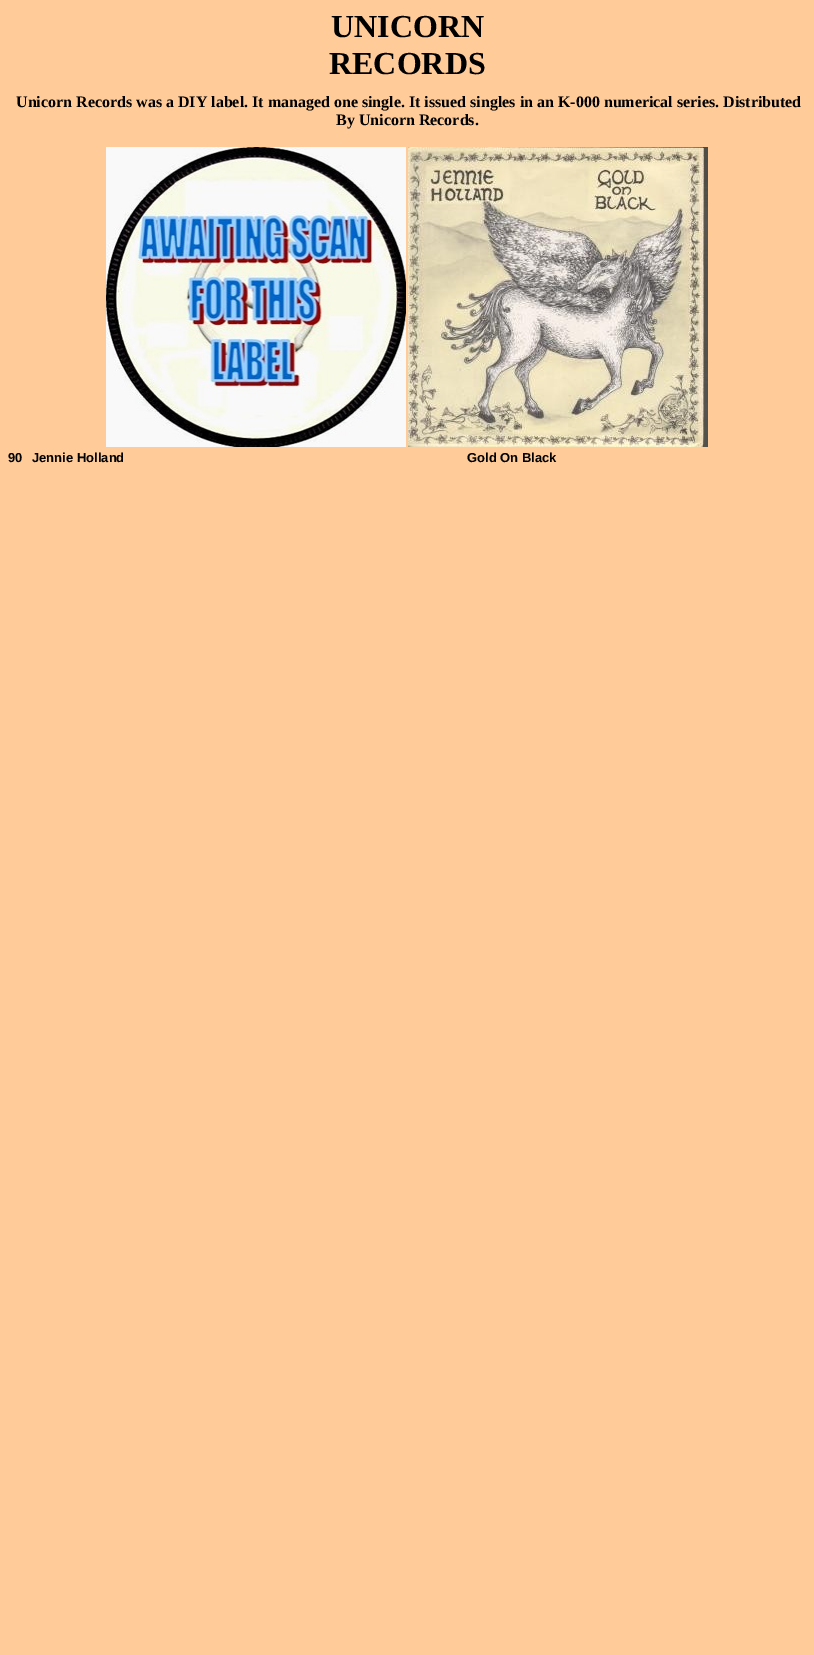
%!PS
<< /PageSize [814 1655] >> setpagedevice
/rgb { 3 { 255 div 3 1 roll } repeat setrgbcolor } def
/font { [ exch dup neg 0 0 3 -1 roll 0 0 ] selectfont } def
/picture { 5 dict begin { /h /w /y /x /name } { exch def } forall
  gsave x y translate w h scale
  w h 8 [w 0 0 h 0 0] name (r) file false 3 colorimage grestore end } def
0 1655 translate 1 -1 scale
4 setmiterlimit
255 204 153 rgb
0 0 814 1655 rectfill
(img/1.rgb) 106 147 300 300 picture
(img/2.rgb) 408 147 300 300 picture
/LiberationSerif-Bold 32 font
0 0 0 rgb
331 37 moveto (UNICORN) show
329 74 moveto (RECORDS) show
/LiberationSerif-Bold 16 font
16 107 moveto (Unicorn Records was a DIY label. It managed one single. It issued singles in an K-000 numerical series. Distributed) show
336 125 moveto (By Unicorn Records.) show
/LiberationSans-Bold 13 font
[
  [(90) 8 462]
  [(Jennie Holland) 32 462]
  [(Gold On Black) 467 462]
] { aload pop moveto show } forall
showpage
